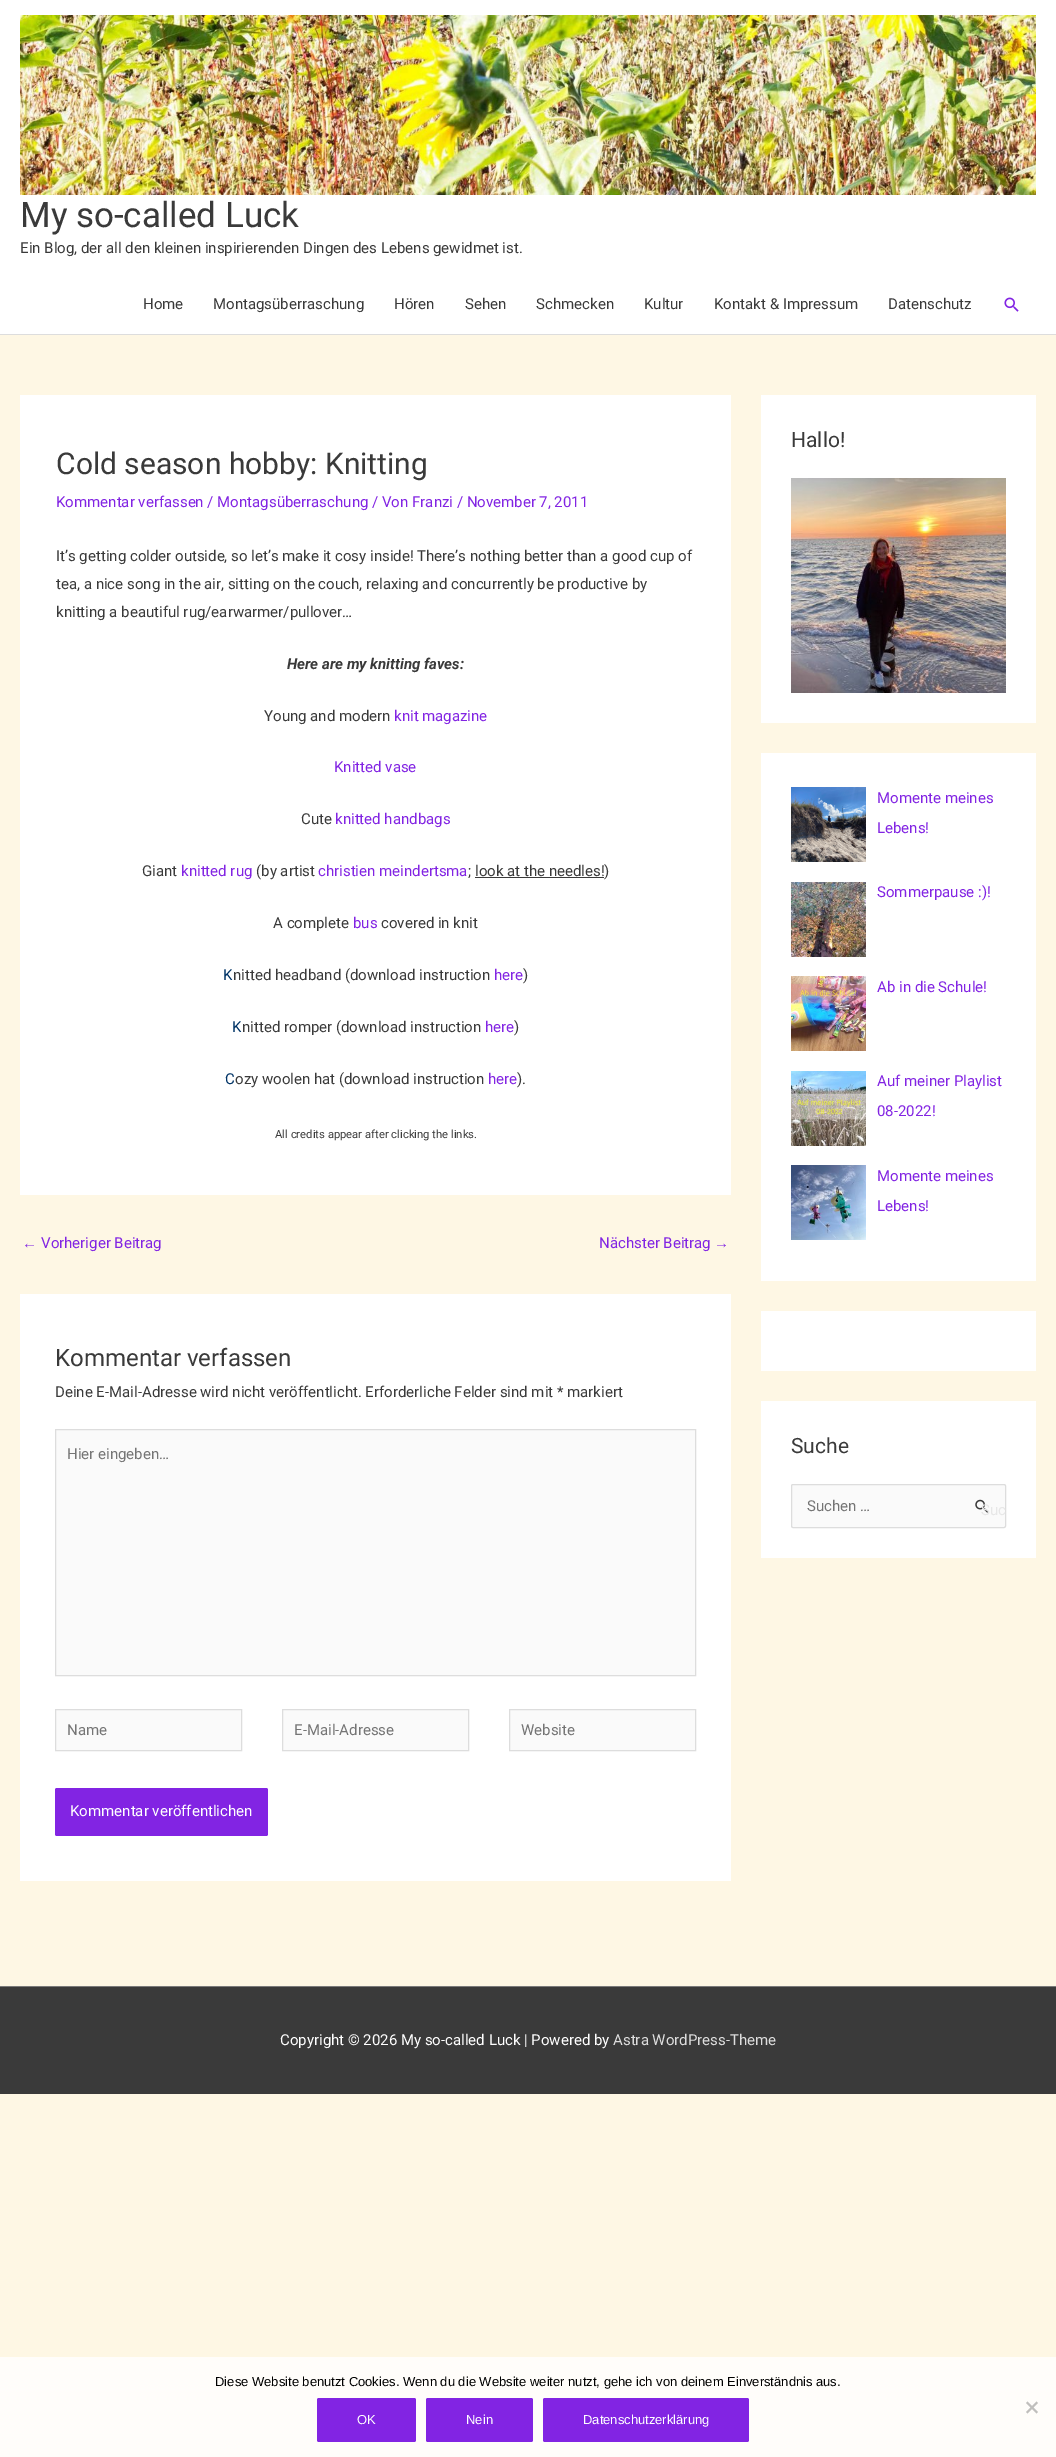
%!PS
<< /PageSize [1056 2457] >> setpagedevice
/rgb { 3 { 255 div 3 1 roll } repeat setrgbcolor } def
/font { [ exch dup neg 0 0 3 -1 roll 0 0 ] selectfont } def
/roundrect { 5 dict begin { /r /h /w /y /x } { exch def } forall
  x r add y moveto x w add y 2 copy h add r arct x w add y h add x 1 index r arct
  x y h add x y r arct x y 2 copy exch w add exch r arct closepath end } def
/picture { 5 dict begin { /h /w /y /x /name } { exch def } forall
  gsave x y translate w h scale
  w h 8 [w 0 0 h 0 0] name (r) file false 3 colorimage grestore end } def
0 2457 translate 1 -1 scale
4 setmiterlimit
254 247 228 rgb
0 0 1056 2457 rectfill
255 255 255 rgb
0 0 1056 334 rectfill
221 221 221 rgb
0 334 1056 1 rectfill
(img/1.rgb) 20 15 1016 180 picture
(img/2.rgb) 1004 297 15 15 picture
[
  [20 395 711 800 255 255 255]
  [475 877 129 1 58 58 58]
  [20 1294 711 587 255 255 255]
] { aload pop rgb rectfill } forall
250 250 250 rgb
55.5 1429.5 moveto 695.5 1429.5 lineto 695.5 1675.5 lineto 55.5 1675.5 lineto closepath gsave fill grestore
221 221 221 rgb
stroke
250 250 250 rgb
55.5 1709.5 moveto 241.5 1709.5 lineto 241.5 1750.5 lineto 55.5 1750.5 lineto closepath gsave fill grestore
221 221 221 rgb
stroke
250 250 250 rgb
282.5 1709.5 moveto 468.5 1709.5 lineto 468.5 1750.5 lineto 282.5 1750.5 lineto closepath gsave fill grestore
221 221 221 rgb
stroke
250 250 250 rgb
509.5 1709.5 moveto 695.5 1709.5 lineto 695.5 1750.5 lineto 509.5 1750.5 lineto closepath gsave fill grestore
221 221 221 rgb
stroke
130 36 227 rgb
55 1788 213 48 2 roundrect fill
255 255 255 rgb
761 395 275 328 rectfill
(img/3.rgb) 791 478 215 215 picture
761 753 275 528 rectfill
(img/4.rgb) 791 787 75 75 picture
(img/5.rgb) 791 882 75 75 picture
(img/6.rgb) 791 976 75 75 picture
(img/7.rgb) 791 1071 75 75 picture
(img/8.rgb) 791 1165 75 75 picture
761 1311 275 60 rectfill
761 1401 275 157 rectfill
250 250 250 rgb
791.5 1484.5 214 43 1.5 roundrect gsave fill grestore
221 221 221 rgb
stroke
(img/9.rgb) 975 1499 14 14 picture
[
  [0 1986 1056 1 122 122 122]
  [0 1987 1056 107 58 58 58]
  [0 2357 1056 100 255 253 250]
] { aload pop rgb rectfill } forall
192 191 189 rgb
1036.5 2401.5 moveto 1038 2403 lineto 1027.5 2413.5 lineto 1026 2412 lineto closepath fill
1026 2403 moveto 1027.5 2401.5 lineto 1038 2412 lineto 1036.5 2413.5 lineto closepath fill
130 36 227 rgb
317 2398 99 44 2 roundrect fill
426 2398 107 44 2 roundrect fill
543 2398 206 44 2 roundrect fill
/Roboto-Regular 35 font
58 58 58 rgb
20 227 moveto (My so-called Luck) show
/Roboto-Regular 15 font
[
  [(Ein Blog, der all den kleinen inspirierenden Dingen des Lebens gewidmet ist.) 20 253]
  [(Home) 143 309]
  [(Montagsüberraschung) 213 309]
  [(Hören) 394 309]
  [(Sehen) 465 309]
  [(Schmecken) 536 309]
  [(Kultur) 644 309]
  [(Kontakt & Impressum) 714 309]
  [(Datenschutz) 888 309]
] { aload pop moveto show } forall
/Roboto-Regular 30 font
56 474 moveto (Cold season hobby: Knitting) show
/Roboto-Regular 15 font
130 36 227 rgb
56 507 moveto (Kommentar verfassen / Montagsüberraschung / Von Franzi / November 7, 2011) show
58 58 58 rgb
[
  [(It’s getting colder outside, so let’s make it cosy inside! There’s nothing better than a good cup of) 56 561]
  [(tea, a nice song in the air, sitting on the couch, relaxing and concurrently be productive by) 56 589]
  [(knitting a beautiful rug/earwarmer/pullover…) 56 617]
] { aload pop moveto show } forall
/Roboto-BoldItalic 15 font
287 669 moveto (Here are my knitting faves:) show
/Roboto-Regular 15 font
264 721 moveto (Young and modern) show
130 36 227 rgb
394 721 moveto (knit magazine) show
334 772 moveto (Knitted vase) show
58 58 58 rgb
301 824 moveto (Cute) show
130 36 227 rgb
335 824 moveto (knitted handbags) show
58 58 58 rgb
142 876 moveto (Giant) show
130 36 227 rgb
181 876 moveto (knitted rug) show
58 58 58 rgb
256 876 moveto (\(by artist) show
130 36 227 rgb
318 876 moveto (christien meindertsma) show
58 58 58 rgb
468 876 moveto (; look at the needles!\)) show
273 928 moveto (A complete) show
130 36 227 rgb
353 928 moveto (bus) show
58 58 58 rgb
381 928 moveto (covered in knit) show
0 51 102 rgb
223 980 moveto (K) show
58 58 58 rgb
233 980 moveto (nitted headband \(download instruction) show
130 36 227 rgb
494 980 moveto (here) show
58 58 58 rgb
523 980 moveto (\)) show
0 51 102 rgb
232 1032 moveto (K) show
58 58 58 rgb
242 1032 moveto (nitted romper \(download instruction) show
130 36 227 rgb
485 1032 moveto (here) show
58 58 58 rgb
514 1032 moveto (\)) show
0 51 102 rgb
225 1084 moveto (C) show
58 58 58 rgb
235 1084 moveto (ozy woolen hat \(download instruction) show
130 36 227 rgb
488 1084 moveto (here) show
58 58 58 rgb
517 1084 moveto (\).) show
/Roboto-Regular 11.25 font
275 1138 moveto (All credits appear after clicking the links.) show
/LiberationSans-Regular 15 font
130 36 227 rgb
22 1248 moveto (←) show
/Roboto-Regular 15 font
41 1248 moveto (Vorheriger Beitrag) show
599 1248 moveto (Nächster Beitrag) show
/LiberationSans-Regular 15 font
714 1248 moveto (→) show
/Roboto-Regular 24 font
58 58 58 rgb
55 1366 moveto (Kommentar verfassen) show
/Roboto-Regular 15 font
55 1397 moveto (Deine E-Mail-Adresse wird nicht veröffentlicht. Erforderliche Felder sind mit * markiert) show
117 117 117 rgb
[
  [(Hier eingeben…) 67 1459]
  [(Name) 67 1735]
  [(E-Mail-Adresse) 294 1735]
  [(Website) 521 1735]
] { aload pop moveto show } forall
255 255 255 rgb
70 1816 moveto (Kommentar veröffentlichen) show
/Roboto-Regular 21 font
58 58 58 rgb
791 447 moveto (Hallo!) show
/Roboto-Regular 15 font
130 36 227 rgb
[
  [(Momente meines) 877 803]
  [(Lebens!) 877 833]
  [(Sommerpause :\)!) 877 897]
  [(Ab in die Schule!) 877 992]
  [(Auf meiner Playlist) 877 1086]
  [(08-2022!) 877 1116]
  [(Momente meines) 877 1181]
  [(Lebens!) 877 1211]
] { aload pop moveto show } forall
/Roboto-Regular 21 font
58 58 58 rgb
791 1453 moveto (Suche) show
/Roboto-Regular 15 font
117 117 117 rgb
807 1511 moveto (Suchen …) show
231 231 231 rgb
981 1515 moveto (Suc) show
255 255 255 rgb
280 2045 moveto (Copyright © 2026 My so-called Luck | Powered by) show
221 221 221 rgb
613 2045 moveto (Astra WordPress-Theme) show
/LiberationSans-Regular 13 font
0 0 0 rgb
215 2386 moveto (Diese Website benutzt Cookies. Wenn du die Website weiter nutzt, gehe ich von deinem Einverständnis aus.) show
255 255 255 rgb
[
  [(OK) 357 2424]
  [(Nein) 466 2424]
  [(Datenschutzerklärung) 583 2424]
] { aload pop moveto show } forall
showpage
